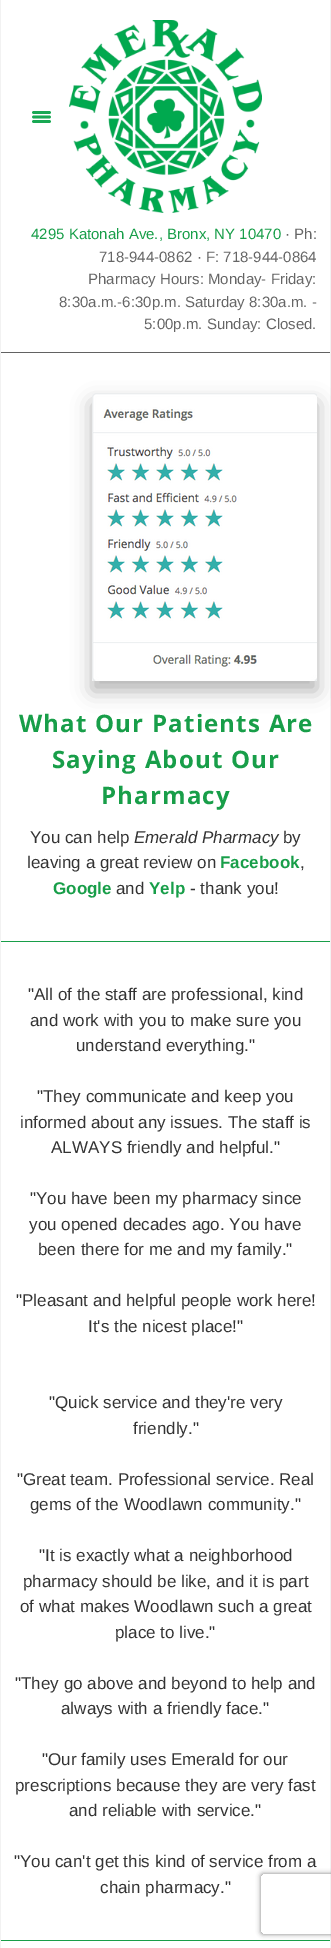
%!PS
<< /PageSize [331 1948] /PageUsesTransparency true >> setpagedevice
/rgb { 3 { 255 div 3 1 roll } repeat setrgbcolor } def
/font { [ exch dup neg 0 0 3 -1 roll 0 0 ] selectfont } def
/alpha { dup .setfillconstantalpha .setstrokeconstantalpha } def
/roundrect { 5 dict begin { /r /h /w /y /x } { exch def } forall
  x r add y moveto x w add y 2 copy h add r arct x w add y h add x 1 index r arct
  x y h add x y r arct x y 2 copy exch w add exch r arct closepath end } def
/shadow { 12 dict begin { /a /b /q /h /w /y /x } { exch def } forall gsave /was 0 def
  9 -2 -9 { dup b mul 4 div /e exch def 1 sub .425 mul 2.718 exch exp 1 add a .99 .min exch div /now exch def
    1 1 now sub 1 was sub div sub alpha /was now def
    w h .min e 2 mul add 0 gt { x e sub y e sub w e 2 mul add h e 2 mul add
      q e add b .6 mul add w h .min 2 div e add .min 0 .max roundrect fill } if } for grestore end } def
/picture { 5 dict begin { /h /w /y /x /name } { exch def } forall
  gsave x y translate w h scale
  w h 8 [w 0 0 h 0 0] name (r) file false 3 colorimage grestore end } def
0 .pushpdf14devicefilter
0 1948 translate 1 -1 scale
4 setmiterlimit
255 255 255 rgb
0 0 331 1948 rectfill
[
  [330 0 1 1948 242 242 242]
  [0 0 1 1948 242 242 242]
  [1 352 329 1 98 98 98]
] { aload pop rgb rectfill } forall
24 168 83 rgb
2.7 setlinewidth
1 setlinecap
33.5 112.5 moveto 49.5 112.5 lineto 33.5 117 moveto 49.5 117 lineto 33.5 121.5 moveto 49.5 121.5 lineto stroke
(img/1.rgb) 69 20 193 193 picture
0 0 0 rgb
92 403 225 288 0 10 0.3 shadow
(img/2.rgb) 92 393 225 288 picture
24 158 73 rgb
1 941 329 1 rectfill
1 1940 329 1 rectfill
gsave
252 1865 moveto 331 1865 lineto 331 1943 lineto 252 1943 lineto closepath 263 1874 moveto 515 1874 lineto 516 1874 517 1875 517 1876 curveto 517 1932 lineto 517 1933 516 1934 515 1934 curveto 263 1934 lineto 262 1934 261 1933 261 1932 curveto 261 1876 lineto 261 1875 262 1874 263 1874 curveto closepath eoclip newpath
128 128 128 rgb
261 1874 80 60 2 2.5 1 shadow
grestore
/LiberationSans-Regular 15 font
31 239 moveto (4295 Katonah Ave., Bronx, NY 10470) show
102 102 102 rgb
[
  [(· Ph:) 285 239]
  [(718-944-0862 · F: 718-944-0864) 99 262]
  [(Pharmacy Hours: Monday- Friday:) 88 284]
  [(8:30a.m.-6:30p.m. Saturday 8:30a.m. -) 59 307]
  [(5:00p.m. Sunday: Closed.) 144 329]
] { aload pop moveto show } forall
/OpenSans-Bold 24 font
24 158 73 rgb
19 732 moveto 1.2 0 (What Our Patients Are) ashow
52 768 moveto 1.2 0 (Saying About Our) ashow
101 804 moveto 1.2 0 (Pharmacy) ashow
/LiberationSans-Regular 17 font
51 51 51 rgb
30 843 moveto (You can help) show
/LiberationSans-Italic 17 font
134 843 moveto (Emerald Pharmacy) show
/LiberationSans-Regular 17 font
283 843 moveto (by) show
27 868 moveto (leaving a great review on) show
/LiberationSans-Bold 17 font
24 158 73 rgb
220 868 moveto (Facebook) show
/LiberationSans-Regular 17 font
51 51 51 rgb
300 868 moveto (,) show
/LiberationSans-Bold 17 font
24 158 73 rgb
53 894 moveto (Google) show
/LiberationSans-Regular 17 font
51 51 51 rgb
116 894 moveto (and) show
/LiberationSans-Bold 17 font
24 158 73 rgb
149 894 moveto (Yelp) show
/LiberationSans-Regular 17 font
51 51 51 rgb
[
  [(- thank you!) 190 894]
  [("All of the staff are professional, kind) 28 1000]
  [(and work with you to make sure you) 30 1026]
  [(understand everything.") 76 1051]
  [("They communicate and keep you) 37 1102]
  [(informed about any issues. The staff is) 20 1128]
  [(ALWAYS friendly and helpful.") 51 1153]
  [("You have been my pharmacy since) 30 1204]
  [(you opened decades ago. You have) 29 1230]
  [(been there for me and my family.") 38 1255]
  [("Pleasant and helpful people work here!) 16 1306]
  [(It's the nicest place!") 88 1332]
  [("Quick service and they're very) 49 1408]
  [(friendly.") 133 1434]
  [("Great team. Professional service. Real) 17 1485]
  [(gems of the Woodlawn community.") 30 1510]
  [("It is exactly what a neighborhood) 39 1561]
  [(pharmacy should be like, and it is part) 23 1587]
  [(of what makes Woodlawn such a great) 20 1612]
  [(place to live.") 115 1638]
  [("They go above and beyond to help and) 15 1689]
  [(always with a friendly face.") 61 1714]
  [("Our family uses Emerald for our) 42 1765]
  [(prescriptions because they are very fast) 15 1791]
  [(and reliable with service.") 69 1816]
  [("You can't get this kind of service from a) 14 1867]
  [(chain pharmacy.") 100 1893]
] { aload pop moveto show } forall
.poppdf14devicefilter showpage
